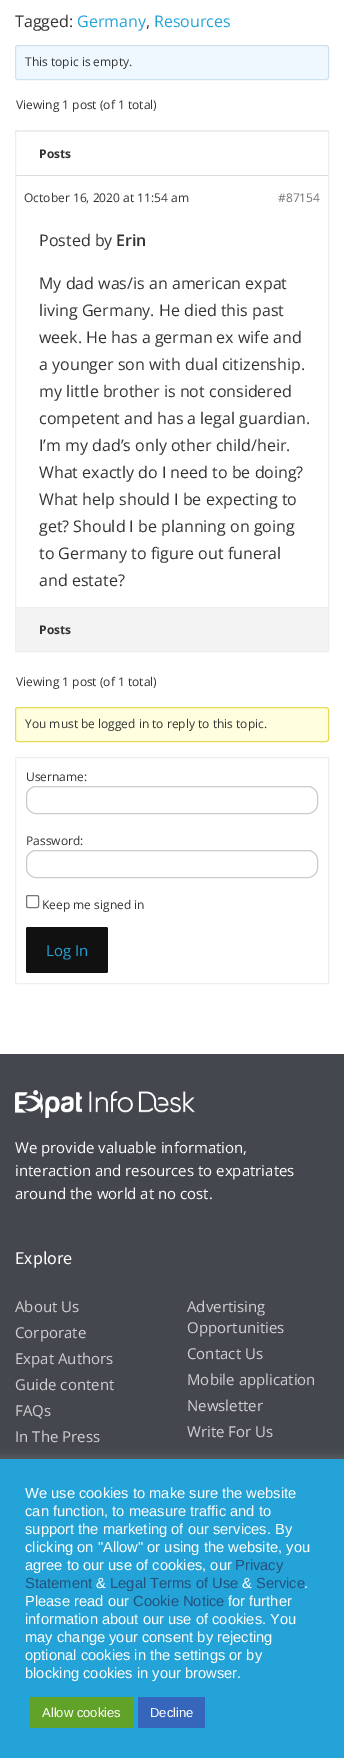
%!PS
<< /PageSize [344 1758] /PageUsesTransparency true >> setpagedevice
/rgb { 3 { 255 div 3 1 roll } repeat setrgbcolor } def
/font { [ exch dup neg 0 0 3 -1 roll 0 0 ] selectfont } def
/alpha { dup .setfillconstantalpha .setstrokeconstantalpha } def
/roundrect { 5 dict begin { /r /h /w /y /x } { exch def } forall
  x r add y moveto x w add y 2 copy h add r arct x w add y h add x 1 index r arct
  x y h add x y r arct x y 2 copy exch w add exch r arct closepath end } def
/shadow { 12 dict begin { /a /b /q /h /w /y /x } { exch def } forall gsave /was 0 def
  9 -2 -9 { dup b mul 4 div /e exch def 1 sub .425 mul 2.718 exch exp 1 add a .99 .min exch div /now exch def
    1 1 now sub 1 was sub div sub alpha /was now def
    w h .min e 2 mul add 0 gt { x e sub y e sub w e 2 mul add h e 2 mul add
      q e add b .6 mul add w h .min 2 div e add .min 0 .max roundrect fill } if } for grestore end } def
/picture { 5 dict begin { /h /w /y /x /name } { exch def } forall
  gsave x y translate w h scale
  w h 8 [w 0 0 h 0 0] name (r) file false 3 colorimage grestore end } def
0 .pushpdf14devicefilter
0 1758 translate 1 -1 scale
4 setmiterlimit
255 255 255 rgb
0 0 344 1758 rectfill
240 248 255 rgb
15.5 45.5 313 34 2.5 roundrect gsave fill grestore
206 225 239 rgb
stroke
238 238 238 rgb
15.5 130.5 313 521 rectstroke
[
  [16 131 312 1 238 238 238]
  [16 175 312 1 221 221 221]
  [16 608 312 43 243 243 243]
  [16 607 312 1 238 238 238]
] { aload pop rgb rectfill } forall
255 255 224 rgb
15.5 707.5 313 34 2.5 roundrect gsave fill grestore
230 219 85 rgb
stroke
238 238 238 rgb
15.5 757.5 313 226 rectstroke
204 204 204 rgb
26.5 786.5 291 27 9.5 roundrect stroke
26.5 850.5 291 27 9.5 roundrect stroke
118 118 118 rgb
26.5 895.5 12 12 1.5 roundrect stroke
17 17 17 rgb
26 927 82 46 2 roundrect fill
69 71 78 rgb
0 1054 344 405 rectfill
(img/1.rgb) 15 1090 180 28 picture
172 171 171 rgb
0 1458 344 299 0 5 0.3 shadow
[
  [0 1459 344 299 36 163 216]
  [30 1697 103 31 97 162 41]
  [138 1697 67 31 53 102 187]
] { aload pop rgb rectfill } forall
/OpenSans-Regular 16 font
51 51 51 rgb
15 27 moveto (Tagged:) show
36 163 216 rgb
77 27 moveto (Germany) show
51 51 51 rgb
146 27 moveto (,) show
36 163 216 rgb
154 27 moveto (Resources) show
/OpenSans-Regular 12 font
51 51 51 rgb
25 66 moveto (This topic is empty.) show
16 109 moveto (Viewing 1 post \(of 1 total\)) show
/OpenSans-Bold 12 font
39 158 moveto (Posts) show
/OpenSans-Regular 12 font
24 202 moveto (October 16, 2020 at 11:54 am) show
112 112 112 rgb
278 202 moveto (#87154) show
/OpenSans-Regular 16 font
51 51 51 rgb
39 246 moveto (Posted by) show
/OpenSans-SemiBold 16 font
116 246 moveto (Erin) show
/OpenSans-Regular 16 font
[
  [(My dad was/is an american expat) 39 289]
  [(living Germany. He died this past) 39 316]
  [(week. He has a german ex wife and) 39 343]
  [(a younger son with dual citizenship.) 39 370]
  [(my little brother is not considered) 39 397]
  [(competent and has a legal guardian.) 39 424]
  [(I’m my dad’s only other child/heir.) 39 451]
  [(What exactly do I need to be doing?) 39 478]
  [(What help should I be expecting to) 39 505]
  [(get? Should I be planning on going) 39 532]
  [(to Germany to figure out funeral) 39 559]
  [(and estate?) 39 586]
] { aload pop moveto show } forall
/OpenSans-Bold 12 font
39 634 moveto (Posts) show
/OpenSans-Regular 12 font
[
  [(Viewing 1 post \(of 1 total\)) 16 686]
  [(You must be logged in to reply to this topic.) 25 728]
  [(Username:) 26 781]
  [(Password:) 26 845]
  [(Keep me signed in) 42 909]
] { aload pop moveto show } forall
/OpenSans-Regular 15 font
36 163 216 rgb
46 956 moveto (Log In) show
255 255 255 rgb
[
  [(We provide valuable information,) 15 1153]
  [(interaction and resources to expatriates) 15 1176]
  [(around the world at no cost.) 15 1199]
] { aload pop moveto show } forall
/SourceSansPro-Regular 18 font
15 1264 moveto (Explore) show
/OpenSans-Regular 15 font
208 208 210 rgb
[
  [(About Us) 15 1312]
  [(Corporate) 15 1338]
  [(Expat Authors) 15 1364]
  [(Guide content) 15 1390]
  [(FAQs) 15 1416]
  [(In The Press) 15 1442]
  [(Advertising) 187 1312]
  [(Opportunities) 187 1333]
  [(Contact Us) 187 1359]
  [(Mobile application) 187 1385]
  [(Newsletter) 187 1411]
  [(Write For Us) 187 1437]
] { aload pop moveto show } forall
/LiberationSans-Regular 14.7 font
255 255 255 rgb
[
  [(We use cookies to make sure the website) 25 1498]
  [(can function, to measure traffic and to) 25 1516]
  [(support the marketing of our services. By) 25 1534]
  [(clicking on "Allow" or using the website, you) 25 1552]
  [(agree to our use of cookies, our) 25 1570]
] { aload pop moveto show } forall
35 82 124 rgb
235 1570 moveto (Privacy) show
25 1588 moveto (Statement) show
255 255 255 rgb
96 1588 moveto (&) show
35 82 124 rgb
110 1588 moveto (Legal Terms of Use) show
255 255 255 rgb
242 1588 moveto (&) show
35 82 124 rgb
256 1588 moveto (Service) show
255 255 255 rgb
304 1588 moveto (.) show
25 1606 moveto (Please read our) show
35 82 124 rgb
133 1606 moveto (Cookie Notice) show
255 255 255 rgb
[
  [(for further) 228 1606]
  [(information about our use of cookies. You) 25 1624]
  [(may change your consent by rejecting) 25 1642]
  [(optional cookies in the settings or by) 25 1660]
  [(blocking cookies in your browser.) 25 1678]
] { aload pop moveto show } forall
/LiberationSans-Regular 13 font
42 1717 moveto (Allow cookies) show
150 1717 moveto (Decline) show
.poppdf14devicefilter showpage
